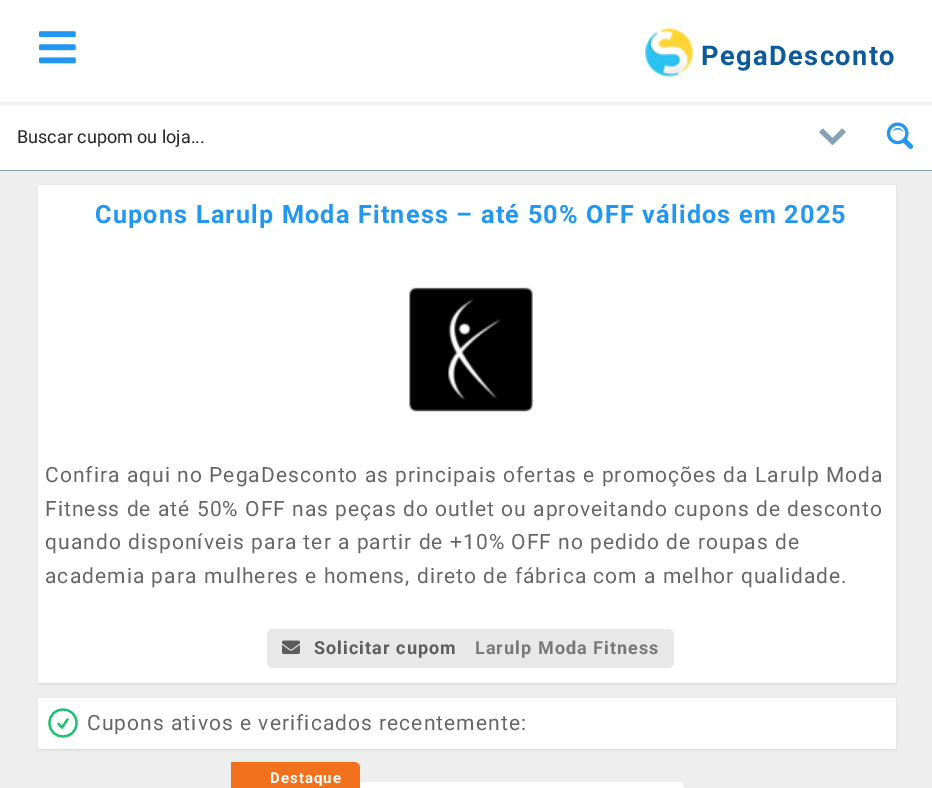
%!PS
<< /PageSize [932 788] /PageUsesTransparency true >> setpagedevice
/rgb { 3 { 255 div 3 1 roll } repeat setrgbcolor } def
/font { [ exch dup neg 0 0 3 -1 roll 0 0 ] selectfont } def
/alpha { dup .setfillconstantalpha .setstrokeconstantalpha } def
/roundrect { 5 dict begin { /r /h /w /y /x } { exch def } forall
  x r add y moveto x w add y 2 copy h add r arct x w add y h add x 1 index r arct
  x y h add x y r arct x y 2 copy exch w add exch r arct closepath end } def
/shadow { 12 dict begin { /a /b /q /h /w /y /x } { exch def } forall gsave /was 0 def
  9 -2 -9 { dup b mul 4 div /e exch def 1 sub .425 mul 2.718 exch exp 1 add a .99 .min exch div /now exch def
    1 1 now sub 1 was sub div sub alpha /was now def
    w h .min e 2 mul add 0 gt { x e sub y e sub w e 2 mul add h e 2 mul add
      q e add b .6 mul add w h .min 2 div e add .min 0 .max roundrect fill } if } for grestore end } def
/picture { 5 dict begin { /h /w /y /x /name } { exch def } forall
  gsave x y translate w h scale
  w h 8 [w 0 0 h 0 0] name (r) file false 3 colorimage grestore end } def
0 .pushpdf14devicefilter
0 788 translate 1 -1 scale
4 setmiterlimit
255 255 255 rgb
0 0 932 788 rectfill
gsave
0 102 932 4 rectclip
0 0 0 rgb
0 0 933 102 0 4 0.12 shadow
grestore
(img/1.rgb) 39 31 37 33 picture
(img/2.rgb) 645 28 48 49 picture
136 161 183 rgb
0 170 932 1 rectfill
842 128.5 moveto 846 132 lineto 832.5 145 lineto 819 132 lineto 823 128.5 lineto 832.5 138 lineto closepath fill
(img/3.rgb) 886 122 28 27 picture
238 238 238 rgb
0 171 932 617 rectfill
0 0 0 rgb
38 186 858 498 0 1 0.08 shadow
255 255 255 rgb
38 185 858 498 rectfill
(img/4.rgb) 409 287 124 125 picture
232 232 232 rgb
267 629 407 39 6 roundrect fill
(img/5.rgb) 282 640 18 14 picture
0 0 0 rgb
38 699 858 51 0 1 0.08 shadow
255 255 255 rgb
38 698 858 51 rectfill
29 191 113 rgb
2.2 setlinewidth
1 setlinecap
1 setlinejoin
58.5 724 moveto 62 727.5 lineto 67.5 719.5 lineto 76.5 723 moveto 76.5 741 49.5 741 49.5 723 curveto 49.5 705 76.5 705 76.5 723 curveto closepath stroke
255 255 255 rgb
249 782 435 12 6 roundrect fill
242 113 28 rgb
231 762 moveto 354 762 lineto 357.5 762 360 764.5 360 768 curveto 360 788 lineto 360 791.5 357.5 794 354 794 curveto 231 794 lineto closepath fill
/Roboto-Bold 27.25 font
12 90 156 rgb
701 65 moveto 1.4 0 (PegaDesconto) ashow
/Roboto-Regular 18 font
38 38 38 rgb
17 143 moveto (Buscar cupom ou loja...) show
/Roboto-Bold 25.2 font
33 150 243 rgb
95 223 moveto 1.2 0 (Cupons Larulp Moda Fitness – até 50% OFF válidos em 2025) ashow
/Roboto-Regular 21 font
102 102 102 rgb
45 482 moveto 1.05 0 (Confira aqui no PegaDesconto as principais ofertas e promoções da Larulp Moda) ashow
45 516 moveto 1.05 0 (Fitness de até 50% OFF nas peças do outlet ou aproveitando cupons de desconto) ashow
45 549 moveto 1.05 0 (quando disponíveis para ter a partir de +10% OFF no pedido de roupas de) ashow
45 583 moveto 1.05 0 (academia para mulheres e homens, direto de fábrica com a melhor qualidade.) ashow
/Roboto-Bold 18 font
93 93 93 rgb
314 654 moveto 1.05 0 (Solicitar cupom) ashow
120 120 120 rgb
475 654 moveto 1.05 0 (Larulp Moda Fitness) ashow
/Roboto-Regular 21 font
102 102 102 rgb
87 730 moveto 1.05 0 (Cupons ativos e verificados recentemente:) ashow
/Roboto-Bold 15 font
255 255 255 rgb
270 783 moveto 1.05 0 (Destaque) ashow
.poppdf14devicefilter showpage
